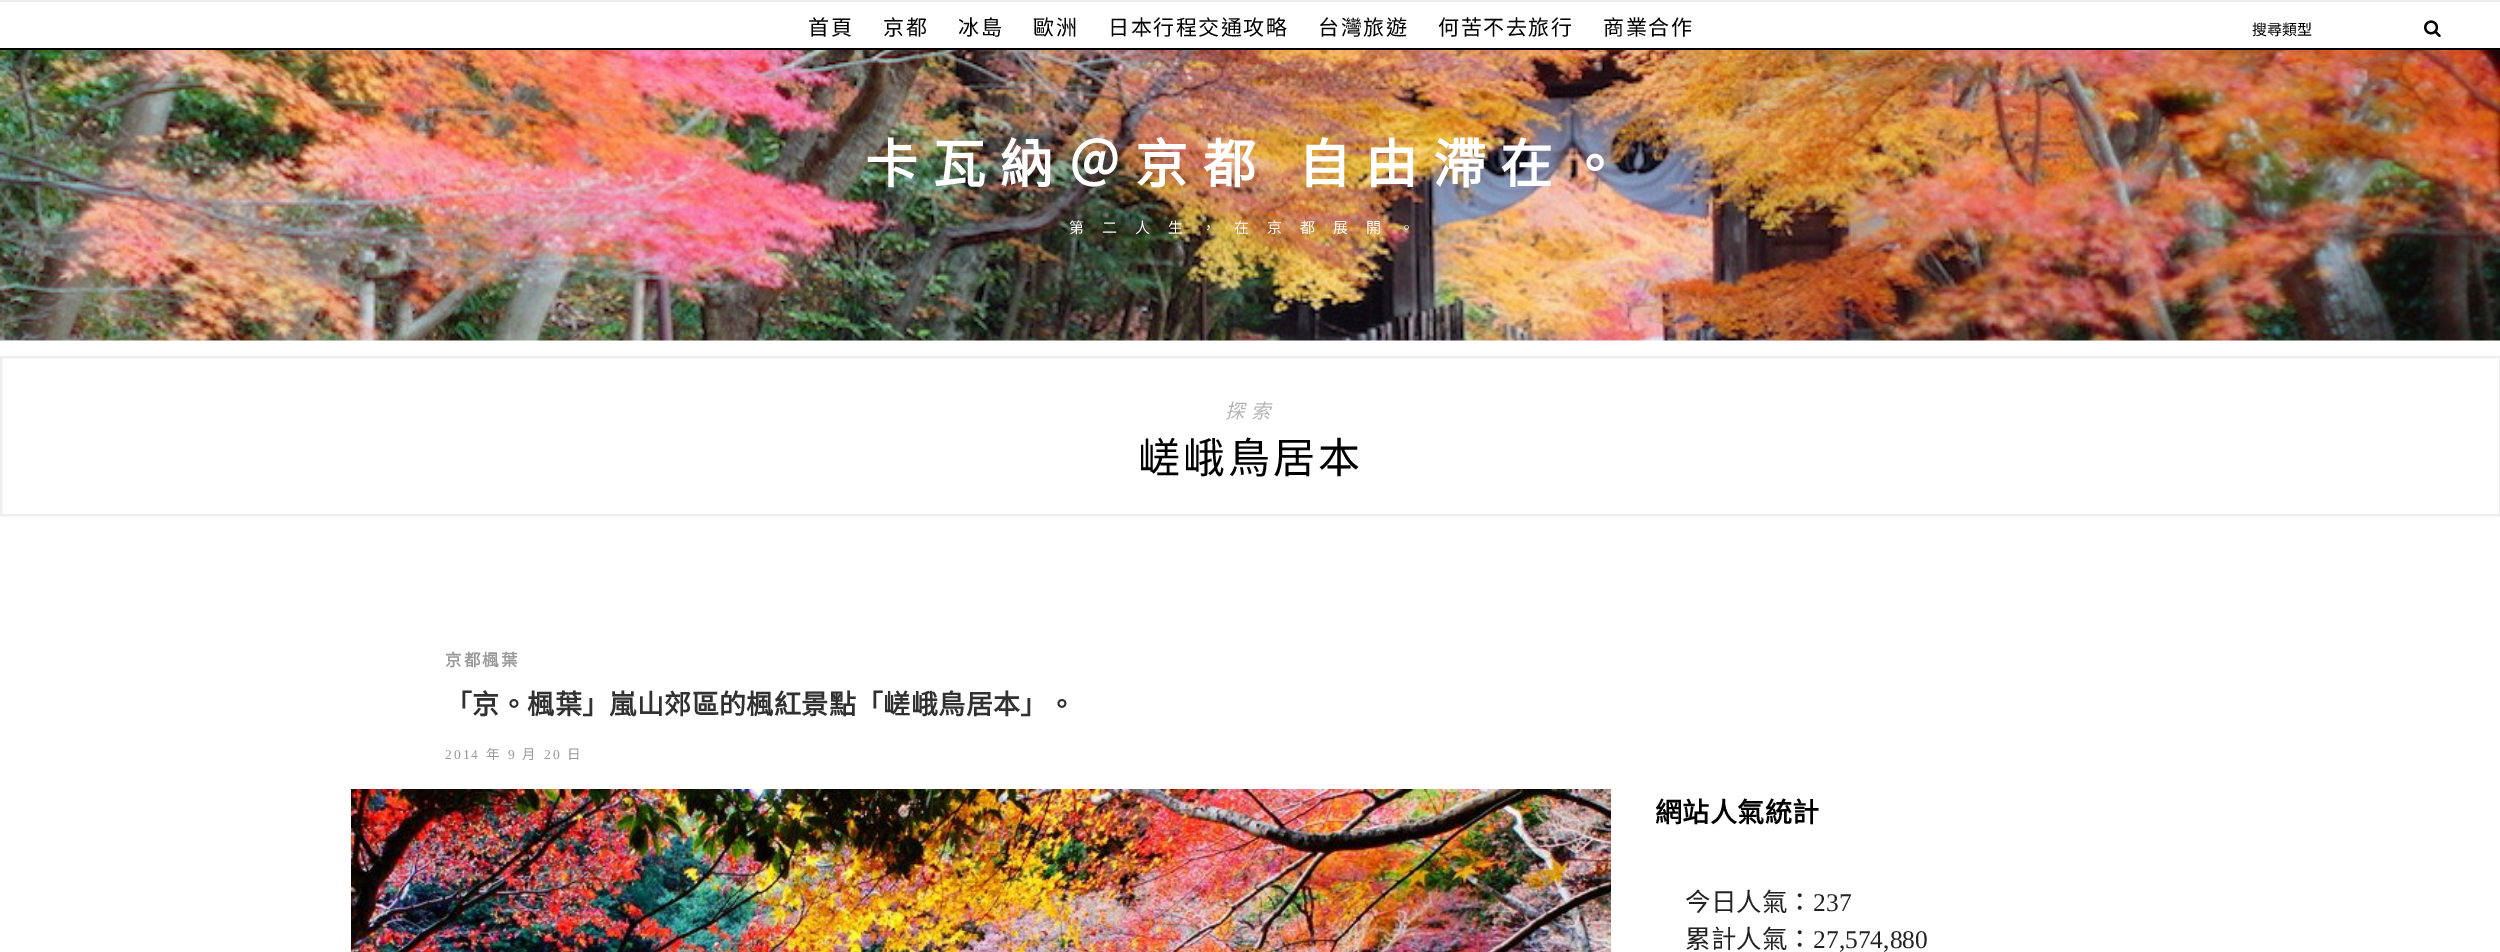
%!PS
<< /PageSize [2500 952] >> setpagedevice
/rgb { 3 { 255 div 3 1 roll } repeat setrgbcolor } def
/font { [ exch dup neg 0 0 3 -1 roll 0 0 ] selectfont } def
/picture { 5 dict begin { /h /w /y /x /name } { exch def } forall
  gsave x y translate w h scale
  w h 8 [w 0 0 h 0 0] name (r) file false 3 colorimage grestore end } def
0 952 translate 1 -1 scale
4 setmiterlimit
255 255 255 rgb
0 0 2500 952 rectfill
235 235 235 rgb
0 0 2500 2 rectfill
0 0 0 rgb
0 48 2500 2 rectfill
(img/1.rgb) 2424 20 17 18 picture
(img/2.rgb) 0 50 2500 291 picture
238 238 238 rgb
2 setlinewidth
1 357 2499 158 rectstroke
(img/3.rgb) 351 789 1260 163 picture
/NotoSansCJKTC-Regular 21 font
0 0 0 rgb
808 35 moveto 1.5 0 (首頁) ashow
883 35 moveto 1.5 0 (京都) ashow
958 35 moveto 1.5 0 (冰島) ashow
1033 35 moveto 1.5 0 (歐洲) ashow
1108 35 moveto 1.5 0 (日本行程交通攻略) ashow
1318 35 moveto 1.5 0 (台灣旅遊) ashow
1438 35 moveto 1.5 0 (何苦不去旅行) ashow
1603 35 moveto 1.5 0 (商業合作) ashow
/NotoSansCJKTC-Regular 15 font
2252 35 moveto (搜尋類型) show
/NotoSansCJKTC-Bold 52.5 font
255 255 255 rgb
865 183 moveto 1 0 32 15 0 (卡瓦納＠京都 自由滯在。) awidthshow
/NotoSansCJKTC-Regular 15 font
1069 233 moveto 18 0 (第二人生，在京都展開。) ashow
/NotoSansCJKTC-Italic 19.5 font
181 181 181 rgb
1225 418 moveto 6 0 (探索) ashow
/NotoSansCJKTC-Regular 42 font
0 0 0 rgb
1138 473 moveto 3 0 (嵯峨鳥居本) ashow
/NotoSansCJKTC-Bold 16.5 font
153 153 153 rgb
445 666 moveto 2 0 (京都楓葉) ashow
/NotoSansCJKTC-Bold 27 font
49 49 49 rgb
445 714 moveto 0.4 0 (「京。楓葉」嵐山郊區的楓紅景點「嵯峨鳥居本」。) ashow
/LiberationSerif-Regular 13.5 font
153 153 153 rgb
445 759 moveto 2 0 (2014) ashow
/NotoSansCJKTC-Regular 13.5 font
486 759 moveto 2 0 (年) ashow
/LiberationSerif-Regular 13.5 font
508 759 moveto 2 0 (9) ashow
/NotoSansCJKTC-Regular 13.5 font
522 759 moveto 2 0 (月) ashow
/LiberationSerif-Regular 13.5 font
544 759 moveto 2 0 (20) ashow
/NotoSansCJKTC-Regular 13.5 font
567 759 moveto 2 0 (日) ashow
/NotoSansCJKTC-Bold 27 font
0 0 0 rgb
1655 822 moveto 0.4 0 (網站人氣統計) ashow
/NotoSansCJKTC-Regular 25.5 font
34 34 34 rgb
1685 911 moveto (今日人氣：) show
/LiberationSerif-Regular 25.5 font
1813 911 moveto (237) show
/NotoSansCJKTC-Regular 25.5 font
1685 948 moveto (累計人氣：) show
/LiberationSerif-Regular 25.5 font
1813 948 moveto (27,574,880) show
showpage
